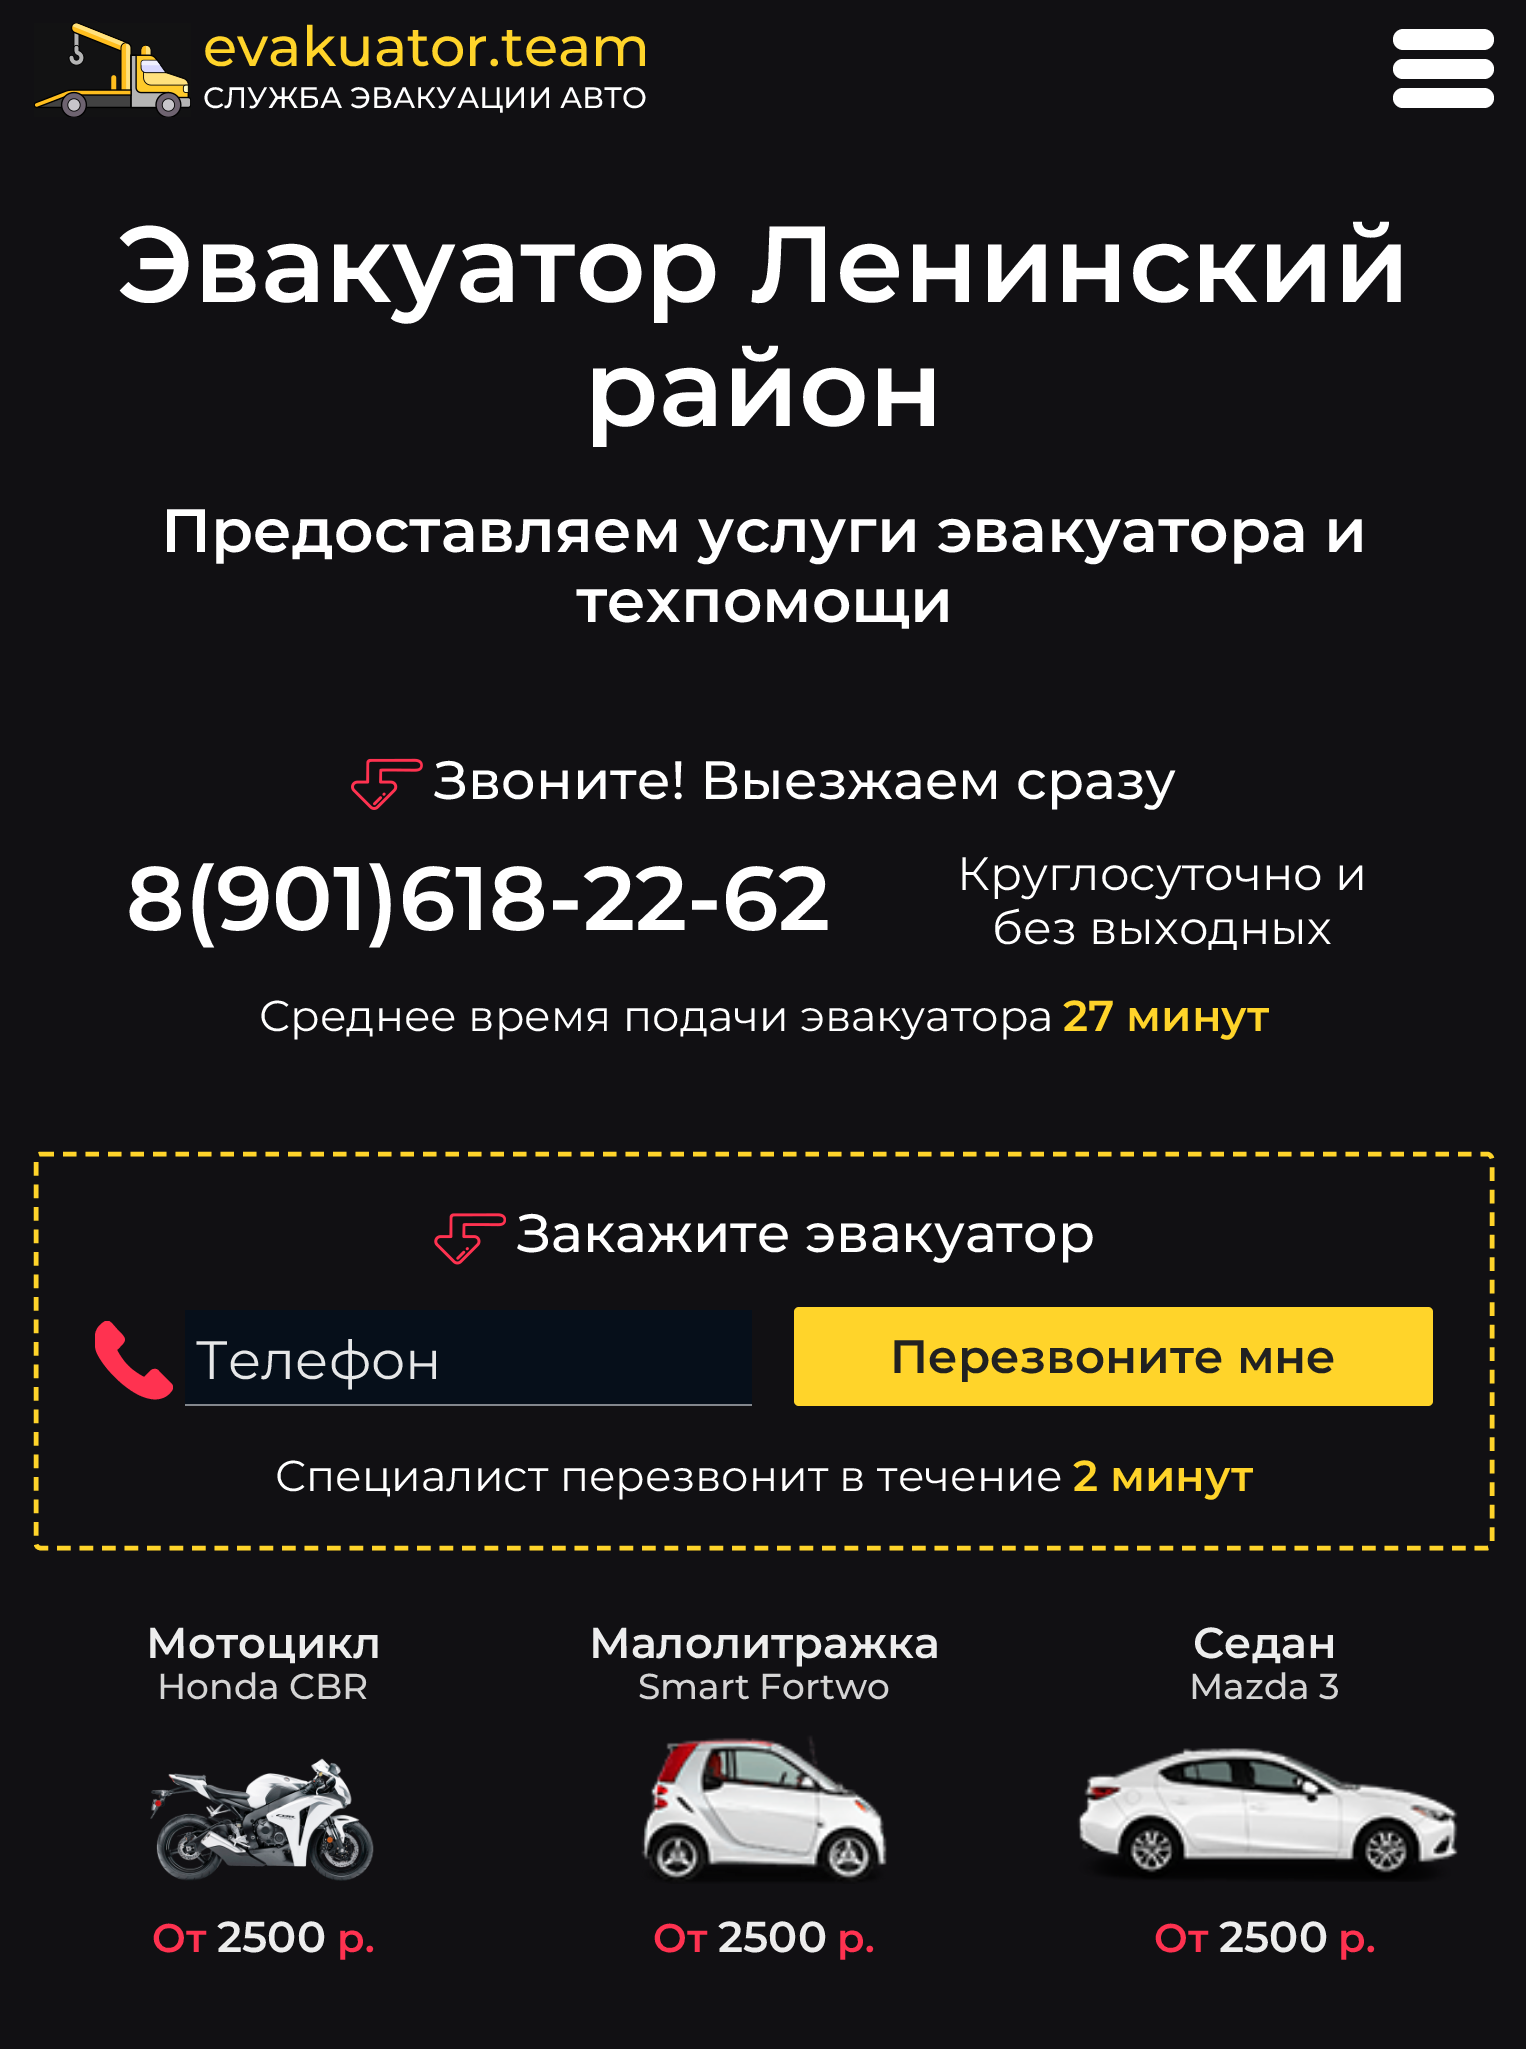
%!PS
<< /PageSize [1526 2049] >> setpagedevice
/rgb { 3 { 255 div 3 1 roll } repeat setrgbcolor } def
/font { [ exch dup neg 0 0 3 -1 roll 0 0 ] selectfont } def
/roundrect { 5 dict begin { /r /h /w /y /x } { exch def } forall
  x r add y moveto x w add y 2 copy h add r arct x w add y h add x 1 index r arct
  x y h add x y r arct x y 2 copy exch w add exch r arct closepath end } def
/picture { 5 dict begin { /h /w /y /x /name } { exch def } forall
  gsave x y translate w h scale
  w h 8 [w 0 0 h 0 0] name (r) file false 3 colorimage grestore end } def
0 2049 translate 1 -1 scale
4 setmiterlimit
17 16 19 rgb
0 0 1526 2049 rectfill
(img/1.rgb) 34 23 157 94 picture
255 255 255 rgb
1393 29 101 21 10.5 roundrect fill
1393 59 101 20 10 roundrect fill
1393 88 101 20 10 roundrect fill
(img/2.rgb) 351 758 72 52 picture
255 212 42 rgb
4.5 setlinewidth
[13.5 9] 0 setdash
40.5 1154 moveto 1487 1154 lineto 1489.5 1154 1492 1156.5 1492 1159 curveto 1492 1543.5 lineto 1492 1546 1489.5 1548 1487 1548 curveto 40.5 1548 lineto 38 1548 36 1546 36 1543.5 curveto 36 1159 lineto 36 1156.5 38 1154 40.5 1154 curveto closepath stroke
(img/3.rgb) 434 1213 72 52 picture
gsave
95 1321 78 79 rectclip
255 50 80 rgb
171 1383 moveto 159 1371 lineto 157 1368 153 1368 150 1371 curveto 144 1377 lineto 131 1370 124 1363 117 1350 curveto 127 1340 128 1340 117 1329 curveto 109 1320 108 1317 99 1326 curveto 93 1333 94 1343 96 1351 curveto 103 1370 145 1413 168 1395 curveto 171 1392 176 1388 171 1383 curveto closepath fill
grestore
6 15 26 rgb
185 1310 567 94 rectfill
131 135 141 rgb
185 1404 567 2 rectfill
255 212 42 rgb
794 1307 639 99 5 roundrect fill
(img/4.rgb) 150 1758 224 123 picture
(img/5.rgb) 641 1735 246 149 picture
(img/6.rgb) 1077 1748 381 134 picture
/Montserrat-Medium 55.75 font
203 66 moveto (evakuator.team) show
/Montserrat-Medium 29.5 font
255 255 255 rgb
203 108 moveto (СЛУЖБА ЭВАКУАЦИИ АВТО) show
/Montserrat-SemiBold 108 font
117 302 moveto (Эвакуатор Ленинский) show
584 426 moveto (район) show
/Montserrat-SemiBold 61.25 font
161 552 moveto (Предоставляем услуги эвакуатора и) show
576 622 moveto (техпомощи) show
/Montserrat-Medium 54 font
434 799 moveto (Звоните! Выезжаем сразу) show
/Montserrat-SemiBold 90 font
126 930 moveto (8\(901\)618-22-62) show
/Montserrat-Regular 46.75 font
957 890 moveto (Круглосуточно и) show
992 944 moveto (без выходных) show
/Montserrat-Regular 43.25 font
259 1031 moveto (Среднее время подачи эвакуатора) show
/Montserrat-SemiBold 43.25 font
255 212 42 rgb
1063 1031 moveto (27 минут) show
/Montserrat-Medium 54 font
255 255 255 rgb
517 1252 moveto (Закажите эвакуатор) show
/Montserrat-Regular 54 font
230 231 232 rgb
196 1379 moveto (Телефон) show
/Montserrat-SemiBold 46.75 font
33 33 33 rgb
890 1373 moveto (Перезвоните мне) show
/Montserrat-Regular 43.25 font
255 255 255 rgb
275 1491 moveto (Специалист перезвонит в течение) show
/Montserrat-SemiBold 43.25 font
255 212 42 rgb
1073 1491 moveto (2 минут) show
237 237 237 rgb
146 1658 moveto (Мотоцикл) show
/Montserrat-Medium 36 font
212 212 212 rgb
157 1699 moveto (Honda CBR) show
/Montserrat-SemiBold 40 font
255 50 80 rgb
152 1952 moveto (От) show
/Montserrat-SemiBold 43.25 font
237 237 237 rgb
217 1952 moveto (2500) show
/Montserrat-SemiBold 40 font
255 50 80 rgb
337 1952 moveto (р.) show
/Montserrat-SemiBold 43.25 font
237 237 237 rgb
589 1658 moveto (Малолитражка) show
/Montserrat-Medium 36 font
212 212 212 rgb
638 1699 moveto (Smart Fortwo) show
/Montserrat-SemiBold 40 font
255 50 80 rgb
653 1952 moveto (От) show
/Montserrat-SemiBold 43.25 font
237 237 237 rgb
718 1952 moveto (2500) show
/Montserrat-SemiBold 40 font
255 50 80 rgb
837 1952 moveto (р.) show
/Montserrat-SemiBold 43.25 font
237 237 237 rgb
1193 1658 moveto (Седан) show
/Montserrat-Medium 36 font
212 212 212 rgb
1189 1699 moveto (Mazda 3) show
/Montserrat-SemiBold 40 font
255 50 80 rgb
1154 1952 moveto (От) show
/Montserrat-SemiBold 43.25 font
237 237 237 rgb
1219 1952 moveto (2500) show
/Montserrat-SemiBold 40 font
255 50 80 rgb
1338 1952 moveto (р.) show
showpage
